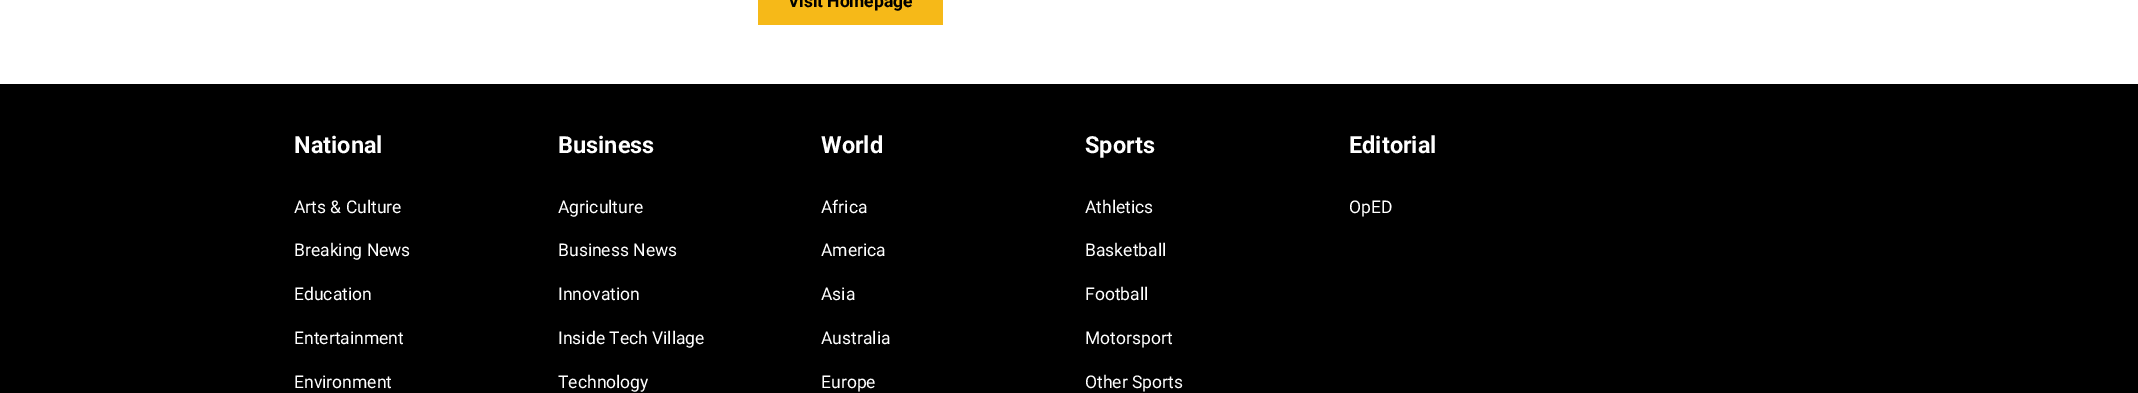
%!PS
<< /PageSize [2138 393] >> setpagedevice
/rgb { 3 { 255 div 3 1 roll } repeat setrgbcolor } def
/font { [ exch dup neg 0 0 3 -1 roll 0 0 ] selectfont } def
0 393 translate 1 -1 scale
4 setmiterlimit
255 255 255 rgb
0 0 2138 393 rectfill
246 185 24 rgb
758 0 185 25 rectfill
0 0 0 rgb
0 84 2138 309 rectfill
/Roboto-Bold 17.5 font
788 7 moveto -0.1 0 (Visit Homepage) ashow
/Roboto-Bold 23.5 font
255 255 255 rgb
294 153 moveto (National) show
/Roboto-Regular 17.5 font
[
  [(Arts & Culture) 294 213]
  [(Breaking News) 294 256]
  [(Education) 294 300]
  [(Entertainment) 294 344]
  [(Environment) 294 388]
] { aload pop moveto show } forall
/Roboto-Bold 23.5 font
558 153 moveto (Business) show
/Roboto-Regular 17.5 font
[
  [(Agriculture) 558 213]
  [(Business News) 558 256]
  [(Innovation) 558 300]
  [(Inside Tech Village) 558 344]
  [(Technology) 558 388]
] { aload pop moveto show } forall
/Roboto-Bold 23.5 font
821 153 moveto (World) show
/Roboto-Regular 17.5 font
[
  [(Africa) 821 213]
  [(America) 821 256]
  [(Asia) 821 300]
  [(Australia) 821 344]
  [(Europe) 821 388]
] { aload pop moveto show } forall
/Roboto-Bold 23.5 font
1085 153 moveto (Sports) show
/Roboto-Regular 17.5 font
[
  [(Athletics) 1085 213]
  [(Basketball) 1085 256]
  [(Football) 1085 300]
  [(Motorsport) 1085 344]
  [(Other Sports) 1085 388]
] { aload pop moveto show } forall
/Roboto-Bold 23.5 font
1349 153 moveto (Editorial) show
/Roboto-Regular 17.5 font
1349 213 moveto (OpED) show
showpage
